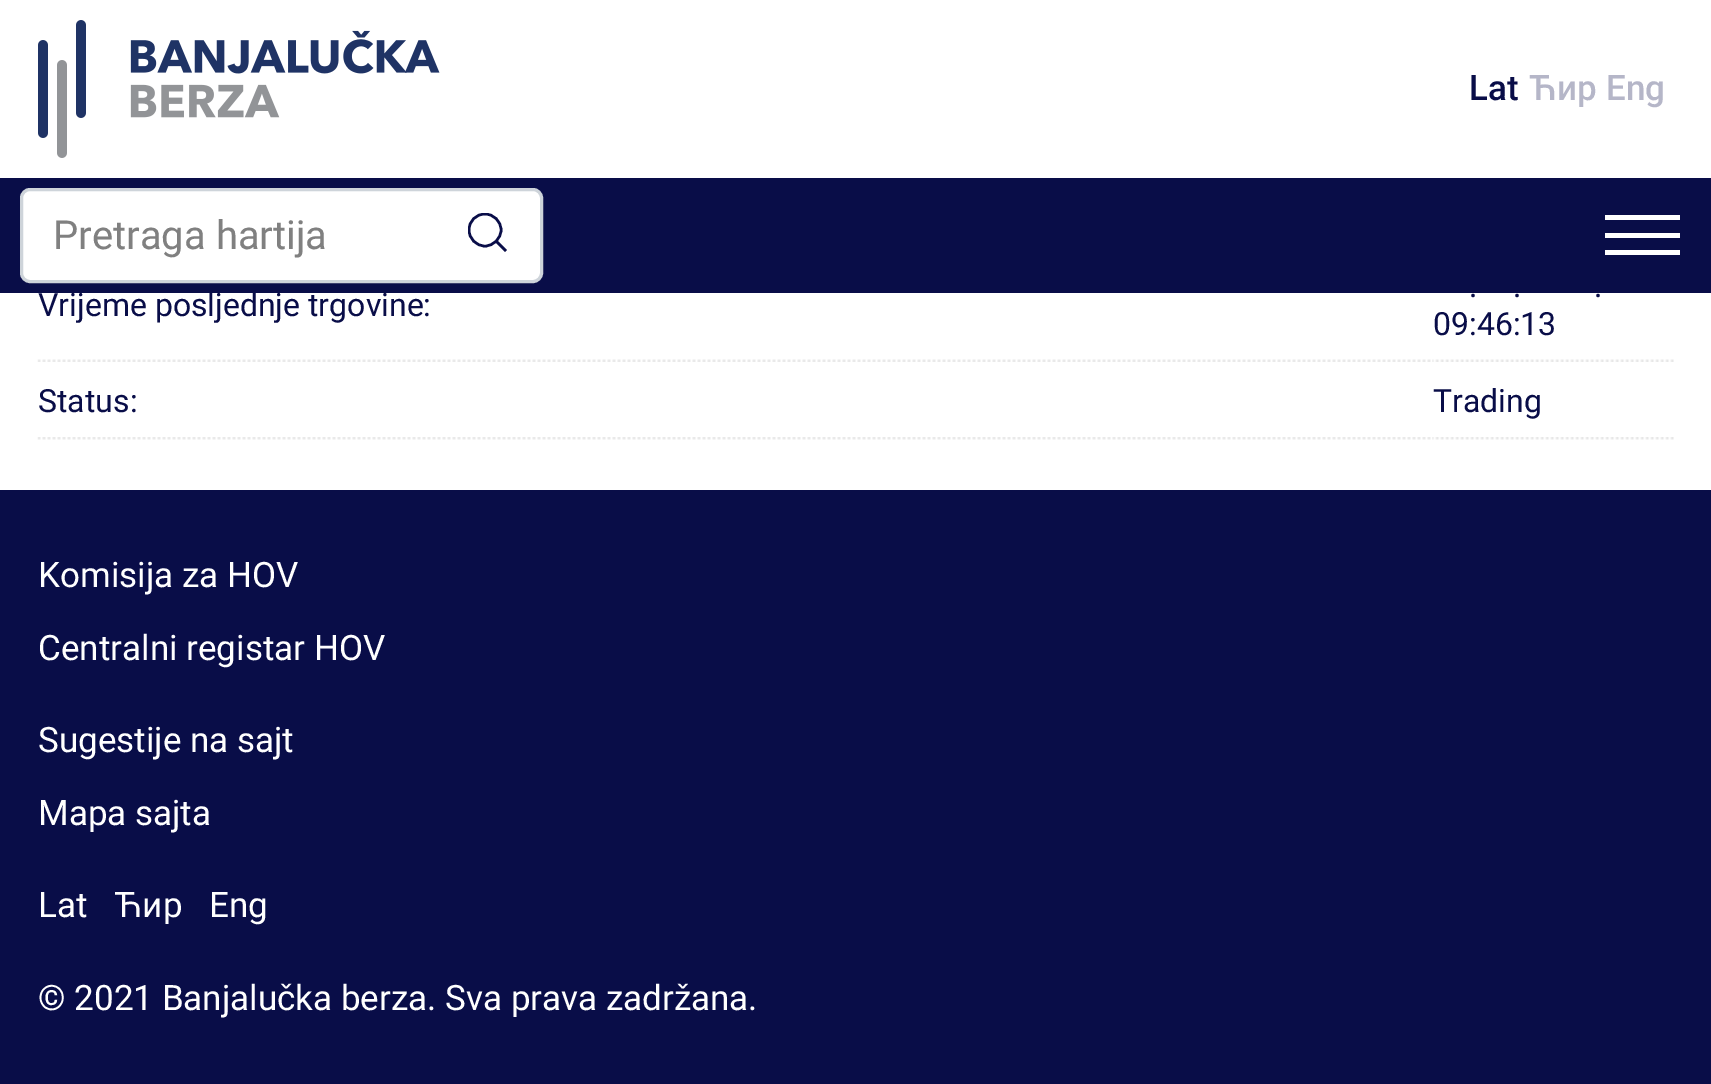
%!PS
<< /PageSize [1711 1084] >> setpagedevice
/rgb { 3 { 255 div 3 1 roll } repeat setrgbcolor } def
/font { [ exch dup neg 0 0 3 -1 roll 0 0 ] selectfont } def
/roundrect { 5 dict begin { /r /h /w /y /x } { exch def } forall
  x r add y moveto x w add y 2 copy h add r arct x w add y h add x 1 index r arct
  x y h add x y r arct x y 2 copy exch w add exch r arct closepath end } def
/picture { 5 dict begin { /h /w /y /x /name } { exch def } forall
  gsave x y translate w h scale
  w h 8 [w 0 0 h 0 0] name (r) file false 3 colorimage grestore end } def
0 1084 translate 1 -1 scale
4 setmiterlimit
255 255 255 rgb
0 0 1711 1084 rectfill
(img/1.rgb) 38 20 402 138 picture
9 13 72 rgb
0 178 1711 115 rectfill
255 255 255 rgb
21.5 189.5 520 92 8.5 roundrect gsave fill grestore
206 212 218 rgb
3 setlinewidth
stroke
gsave
468 213 40 40 rectclip
9 13 72 rgb
2.5 setlinewidth
506 251 moveto 495.5 240.5 lineto 485 246 moveto 476 246 469 238.5 469 230 curveto 469 221 476 214 485 214 curveto 493.5 214 501 221 501 230 curveto 501 238.5 493.5 246 485 246 curveto closepath stroke
grestore
[
  [1605 233 75 5 255 255 255]
  [1605 215 75 5 255 255 255]
  [1605 250 75 5 255 255 255]
] { aload pop rgb rectfill } forall
(img/2.rgb) 37 359 1396 3 picture
(img/3.rgb) 1432 359 242 3 picture
(img/4.rgb) 37 437 1396 3 picture
(img/5.rgb) 1432 437 242 3 picture
9 13 72 rgb
0 490 1711 594 rectfill
/Roboto-Medium 35 font
1469 100 moveto (Lat) show
181 182 200 rgb
1529 100 moveto (Ћир) show
1606 100 moveto (Eng) show
/Roboto-Regular 40 font
128 128 128 rgb
53 249 moveto (Pretraga hartija) show
/Roboto-Regular 32 font
9 13 72 rgb
[
  [(Vrijeme posljednje trgovine:) 38 316]
  [(.) 1469 297]
  [(.) 1513 297]
  [(.) 1594 297]
  [(09:46:13) 1433 335]
  [(Status:) 38 412]
  [(Trading) 1433 412]
] { aload pop moveto show } forall
/Roboto-Regular 35 font
255 255 255 rgb
[
  [(Komisija za HOV) 38 587]
  [(Centralni registar HOV) 38 660]
  [(Sugestije na sajt) 38 752]
  [(Mapa sajta) 38 825]
  [(Lat) 38 917]
  [(Ћир) 114 917]
  [(Eng) 209 917]
  [(© 2021 Banjalučka berza. Sva prava zadržana.) 38 1010]
] { aload pop moveto show } forall
showpage
